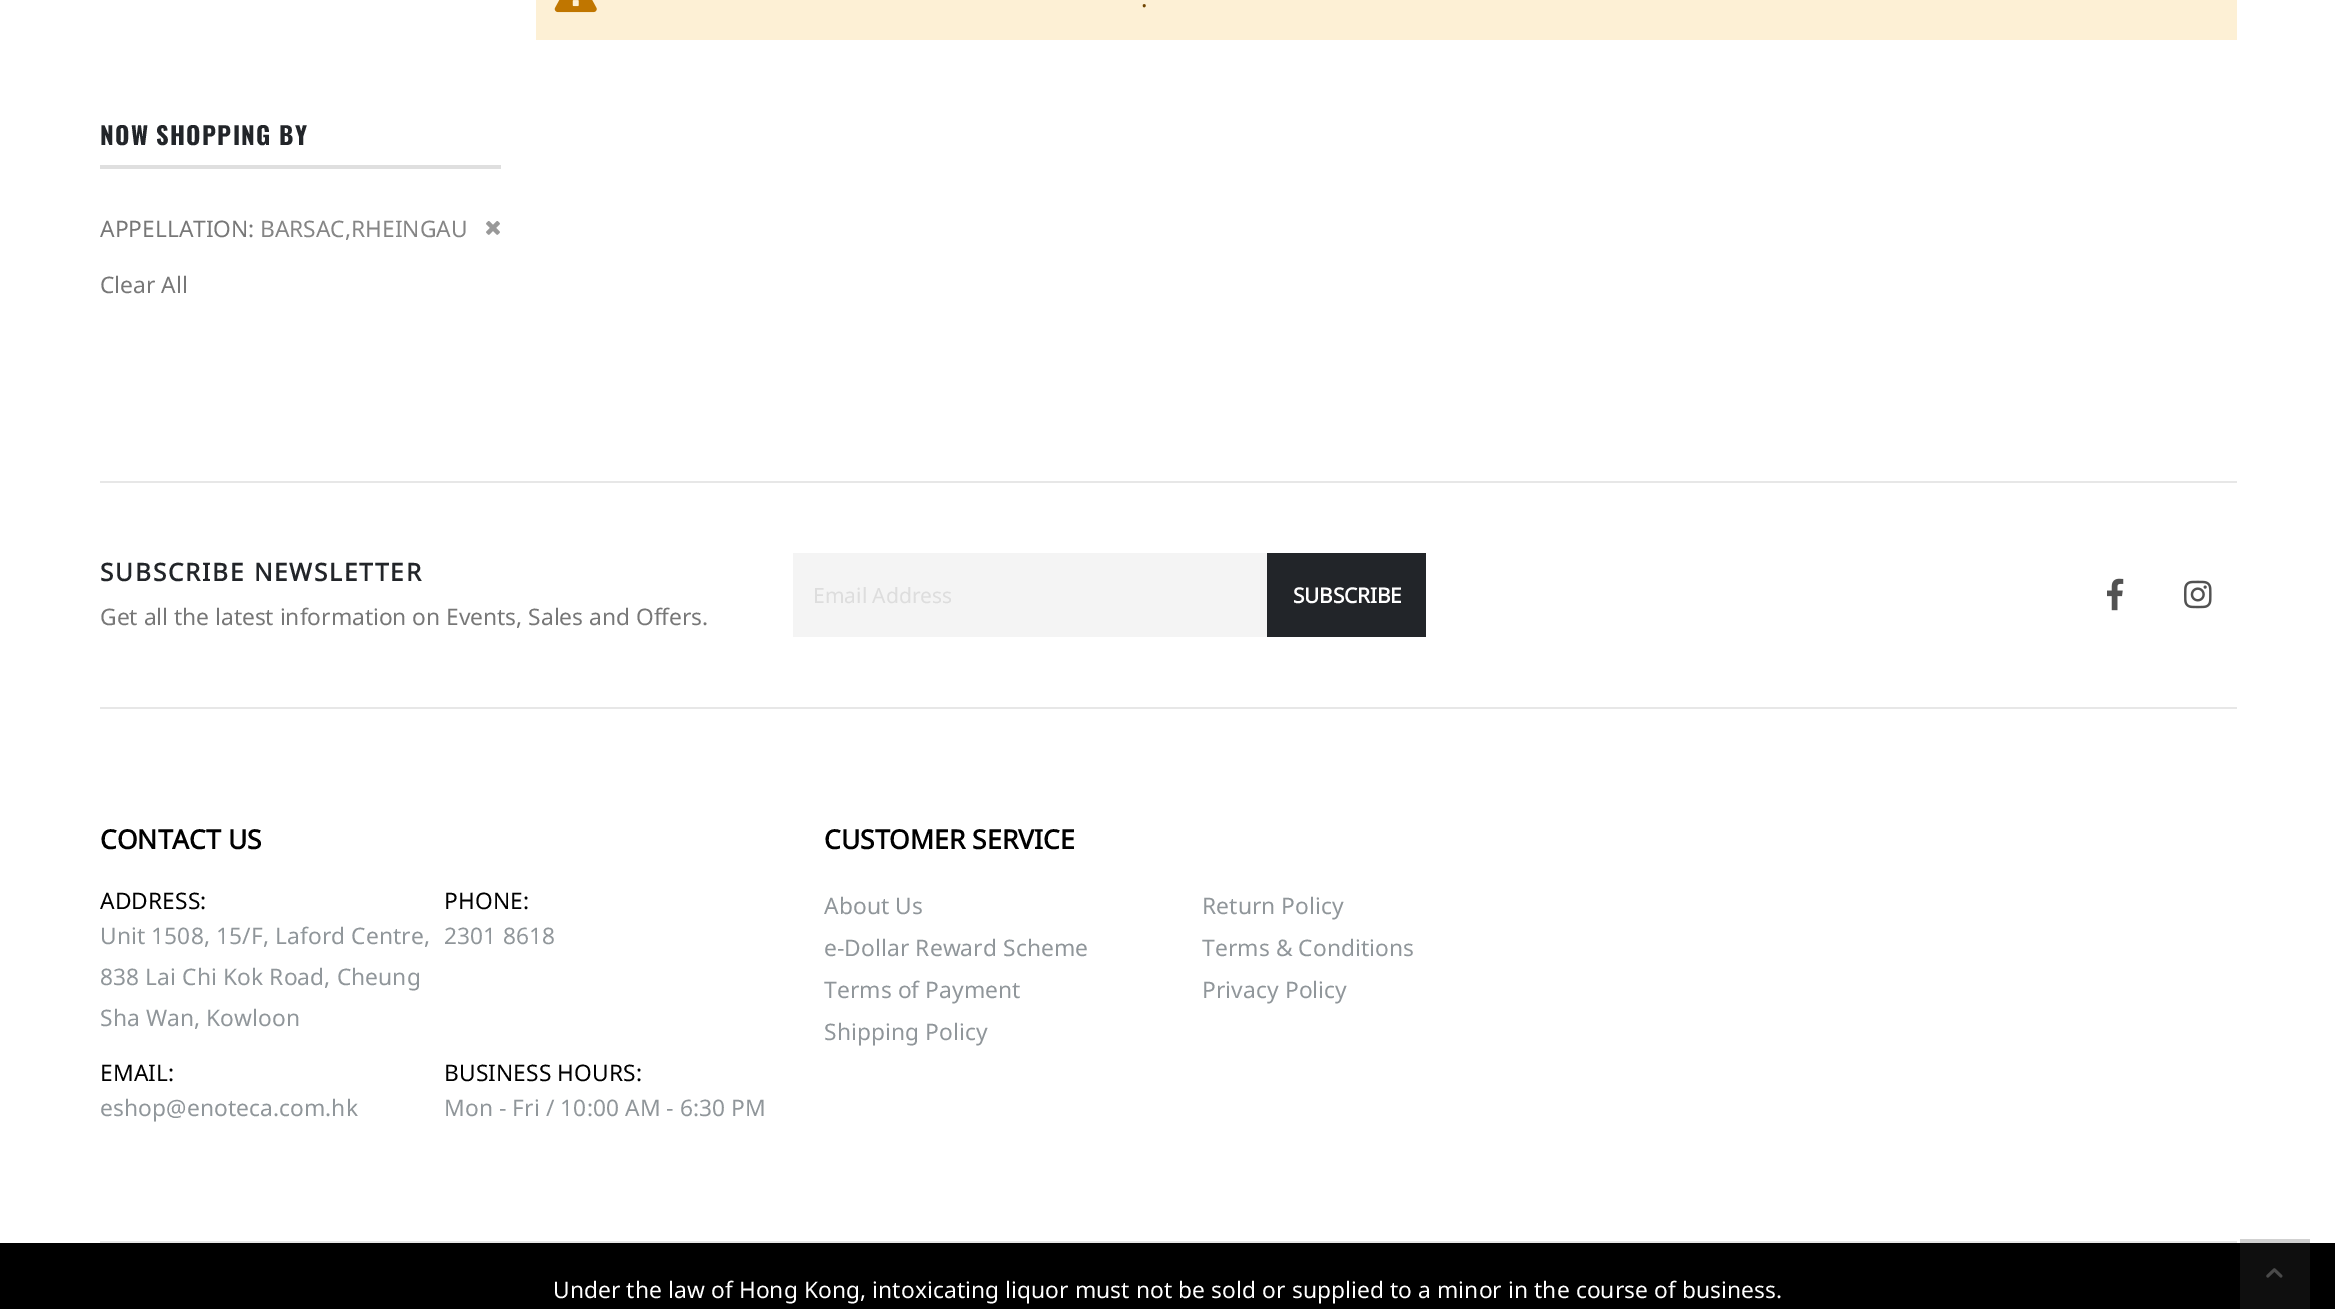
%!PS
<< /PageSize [2335 1309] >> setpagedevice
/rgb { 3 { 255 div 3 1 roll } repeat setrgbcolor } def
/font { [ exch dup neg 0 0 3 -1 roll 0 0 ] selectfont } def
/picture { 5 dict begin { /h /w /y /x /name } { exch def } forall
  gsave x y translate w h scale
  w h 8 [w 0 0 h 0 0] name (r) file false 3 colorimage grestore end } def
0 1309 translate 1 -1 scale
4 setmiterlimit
255 255 255 rgb
0 0 2335 1309 rectfill
209 209 209 rgb
2240 1239 70 4 rectfill
253 240 213 rgb
536 0 1701 40 rectfill
(img/1.rgb) 554 0 43 13 picture
223 223 223 rgb
100 165 401 4 rectfill
(img/2.rgb) 486 221 14 14 picture
[
  [100 481 2137 2 231 231 231]
  [793 553 474 84 244 244 244]
  [1267 553 159 84 34 37 41]
] { aload pop rgb rectfill } forall
(img/3.rgb) 2107 578 17 33 picture
(img/4.rgb) 2184 580 28 29 picture
[
  [100 707 2137 2 231 231 231]
  [100 1241 2137 2 231 231 231]
  [0 1243 2335 66 0 0 0]
  [2240 1243 70 66 15 15 15]
] { aload pop rgb rectfill } forall
(img/5.rgb) 2266 1268 17 10 picture
/NotoSans-Regular 24.5 font
111 68 0 rgb
1141 7 moveto (.) show
/Oswald-Bold 24.5 font
34 37 41 rgb
100 145 moveto 1.25 0 (NOW SHOPPING BY) ashow
/NotoSans-Regular 22.75 font
119 119 119 rgb
100 237 moveto (APPELLATION:) show
133 133 133 rgb
260 237 moveto (BARSAC,RHEINGAU) show
119 119 119 rgb
100 293 moveto (Clear All) show
/NotoSans-Bold 24.5 font
34 37 41 rgb
100 581 moveto 1.8 0 (SUBSCRIBE NEWSLETTER) ashow
/NotoSans-Regular 22.75 font
119 119 119 rgb
100 625 moveto (Get all the latest information on Events, Sales and Offers.) show
/NotoSans-Regular 21 font
221 221 221 rgb
813 603 moveto (Email Address) show
/NotoSans-Bold 21 font
255 255 255 rgb
1293 603 moveto -0.25 0 (SUBSCRIBE) ashow
/NotoSans-Bold 26.5 font
0 0 0 rgb
100 849 moveto (CONTACT US) show
/NotoSans-Regular 22.75 font
100 909 moveto 0.11 0 (ADDRESS:) ashow
144 150 154 rgb
100 944 moveto 0.11 0 (Unit 1508, 15/F, Laford Centre,) ashow
100 985 moveto 0.11 0 (838 Lai Chi Kok Road, Cheung) ashow
100 1026 moveto 0.11 0 (Sha Wan, Kowloon) ashow
0 0 0 rgb
444 909 moveto 0.11 0 (PHONE:) ashow
144 150 154 rgb
444 944 moveto 0.11 0 (2301 8618) ashow
0 0 0 rgb
100 1081 moveto 0.11 0 (EMAIL:) ashow
144 150 154 rgb
100 1116 moveto 0.11 0 (eshop@enoteca.com.hk) ashow
0 0 0 rgb
444 1081 moveto 0.11 0 (BUSINESS HOURS:) ashow
144 150 154 rgb
444 1116 moveto 0.11 0 (Mon - Fri / 10:00 AM - 6:30 PM) ashow
/NotoSans-Bold 26.5 font
0 0 0 rgb
824 849 moveto (CUSTOMER SERVICE) show
/NotoSans-Regular 22.75 font
144 150 154 rgb
824 914 moveto 0.11 0 (About Us) ashow
824 956 moveto 0.11 0 (e-Dollar Reward Scheme) ashow
824 998 moveto 0.11 0 (Terms of Payment) ashow
824 1040 moveto 0.11 0 (Shipping Policy) ashow
1202 914 moveto 0.11 0 (Return Policy) ashow
1202 956 moveto 0.11 0 (Terms & Conditions) ashow
1202 998 moveto 0.11 0 (Privacy Policy) ashow
255 255 255 rgb
553 1298 moveto 0.11 0 (Under the law of Hong Kong, intoxicating liquor must not be sold or supplied to a minor in the course of business.) ashow
showpage
